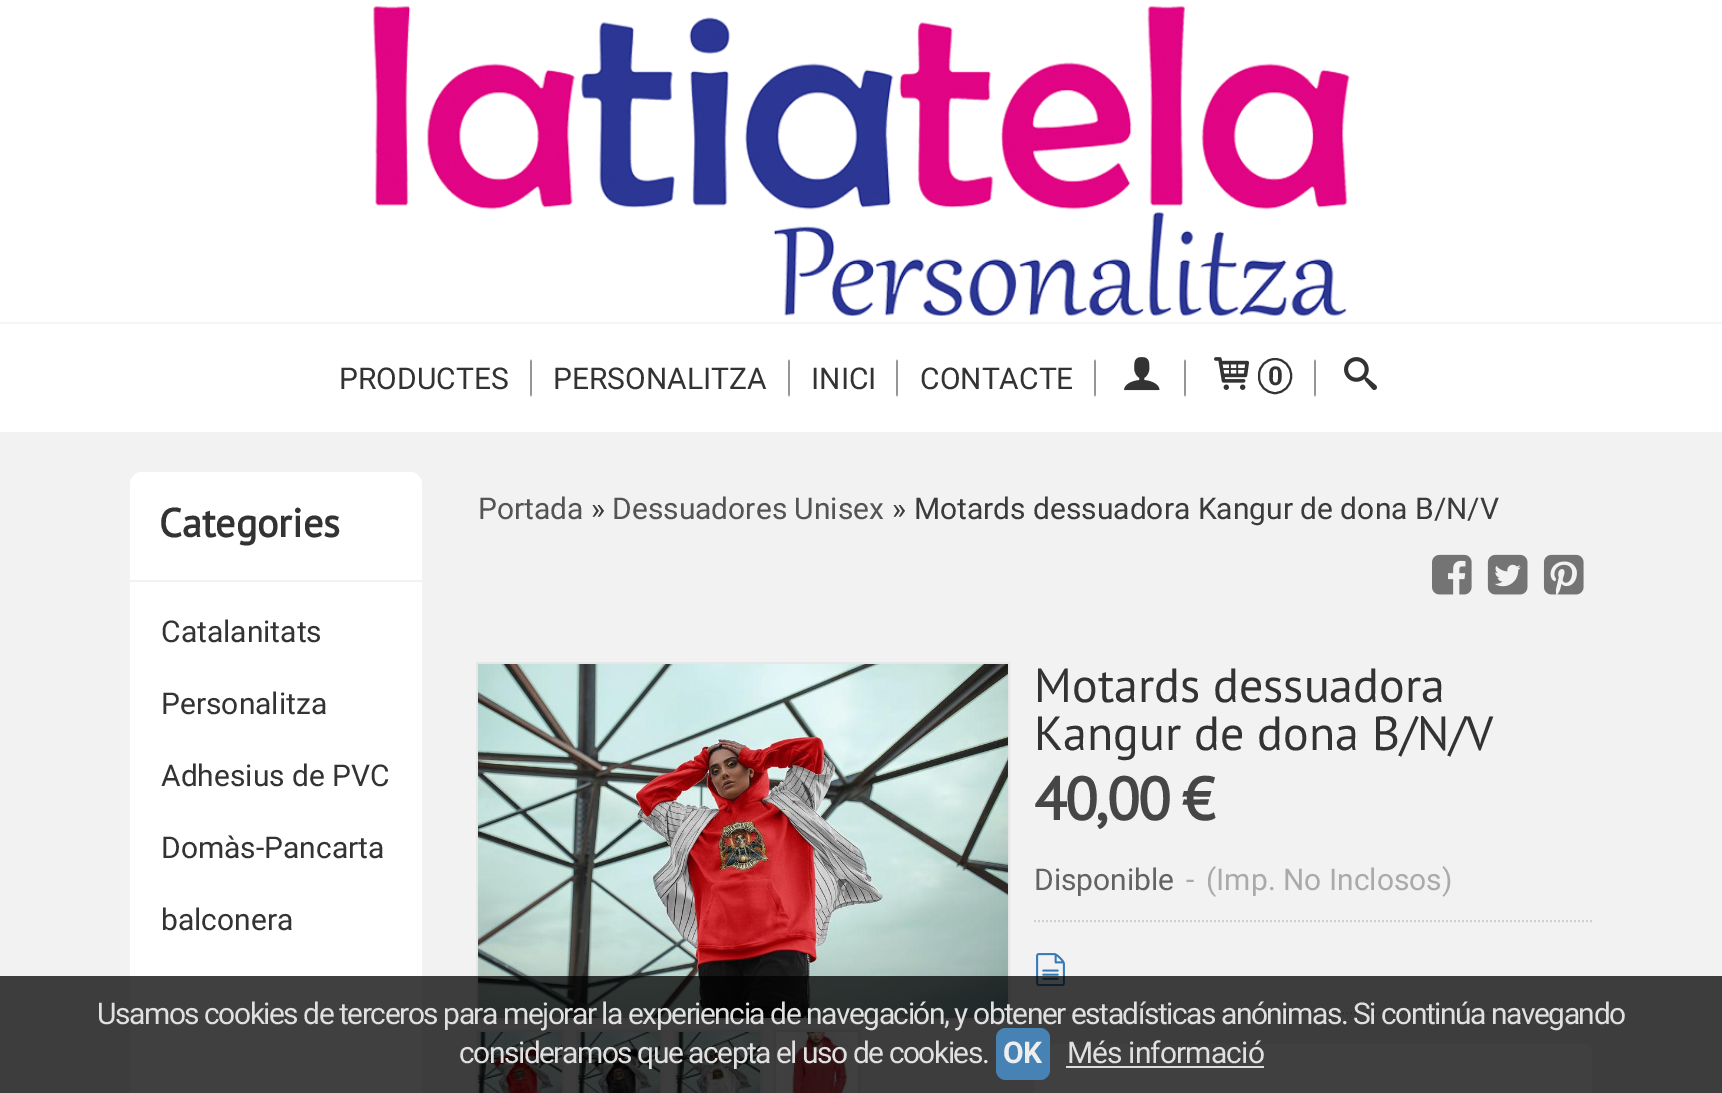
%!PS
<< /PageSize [1722 1093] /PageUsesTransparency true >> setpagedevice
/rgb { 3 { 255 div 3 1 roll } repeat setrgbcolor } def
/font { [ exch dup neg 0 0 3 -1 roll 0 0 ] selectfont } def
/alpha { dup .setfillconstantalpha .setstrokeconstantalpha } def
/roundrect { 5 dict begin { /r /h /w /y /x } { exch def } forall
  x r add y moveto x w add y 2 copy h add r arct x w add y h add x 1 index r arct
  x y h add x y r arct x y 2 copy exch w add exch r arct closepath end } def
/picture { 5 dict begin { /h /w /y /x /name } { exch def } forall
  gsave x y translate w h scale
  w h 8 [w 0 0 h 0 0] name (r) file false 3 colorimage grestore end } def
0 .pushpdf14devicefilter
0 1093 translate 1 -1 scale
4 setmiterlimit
242 242 242 rgb
0 0 1722 1093 rectfill
255 255 255 rgb
0 0 1722 322 rectfill
(img/1.rgb) 373 6 977 310 picture
0 324 1722 108 rectfill
245 245 245 rgb
0 322 1722 2 rectfill
(img/2.rgb) 530 359 2 38 picture
(img/2.rgb) 788 359 2 38 picture
(img/2.rgb) 896 359 2 38 picture
(img/2.rgb) 1094 359 2 38 picture
(img/3.rgb) 1124 357 36 34 picture
(img/2.rgb) 1184 359 2 38 picture
(img/4.rgb) 1214 357 35 33 picture
51 51 51 rgb
2 setlinewidth
1259 359 32 34 16 roundrect stroke
(img/2.rgb) 1314 359 2 38 picture
(img/5.rgb) 1344 357 33 33 picture
255 255 255 rgb
130 472 292 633 12 roundrect fill
242 242 242 rgb
130 580 292 2 rectfill
(img/6.rgb) 1432 554 40 41 picture
(img/7.rgb) 1487 554 41 41 picture
(img/8.rgb) 1543 554 41 41 picture
231 231 231 rgb
477 663 532 356 rectstroke
(img/9.rgb) 478 664 530 354 picture
477 1031 86 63 rectstroke
577 1031 84 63 rectstroke
675 1031 86 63 rectstroke
775 1031 84 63 rectstroke
(img/10.rgb) 478 1032 84 61 picture
(img/11.rgb) 578 1032 82 61 picture
(img/12.rgb) 676 1032 84 61 picture
(img/13.rgb) 776 1032 82 61 picture
208 208 208 rgb
[2 2] 0 setdash
1034 921 moveto 1592 921 lineto stroke
(img/14.rgb) 1036 953 29 34 picture
1034 1013 moveto 1592 1013 lineto stroke
255 255 255 rgb
1034 1044 558 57 8 roundrect fill
0.75 alpha
0 0 0 rgb
0 976 1722 117 rectfill
1 alpha
221 221 221 rgb
1066 1066 198 2 rectfill
/Roboto-Regular 30 font
51 51 51 rgb
[
  [(PRODUCTES) 339 389]
  [(PERSONALITZA) 553 389]
  [(INICI) 811 389]
  [(CONTACTE) 920 389]
] { aload pop moveto show } forall
/Roboto-Bold 26 font
1268 385 moveto (0) show
/PTSans-Bold 40 font
159 537 moveto (Categories) show
/Roboto-Regular 30 font
[
  [(Catalanitats) 161 642]
  [(Personalitza) 161 714]
  [(Adhesius de PVC) 161 786]
  [(Domàs-Pancarta) 161 858]
  [(balconera) 161 930]
] { aload pop moveto show } forall
84 84 84 rgb
478 519 moveto (Portada) show
59 59 59 rgb
591 519 moveto (») show
84 84 84 rgb
612 519 moveto (Dessuadores Unisex) show
59 59 59 rgb
892 519 moveto (» Motards dessuadora Kangur de dona B/N/V) show
/PTSans-Regular 48 font
51 51 51 rgb
1034 702 moveto (Motards dessuadora) show
1034 750 moveto (Kangur de dona B/N/V) show
/PTSans-Bold 60 font
70 70 70 rgb
1034 820 moveto -2 0 (40,00 €) ashow
/Roboto-Regular 30 font
99 99 99 rgb
1034 890 moveto (Disponible) show
170 170 170 rgb
1186 890 moveto (-) show
1206 890 moveto (\(Imp. No Inclosos\)) show
224 224 224 rgb
97 1024 moveto -1.5 0 (Usamos cookies de terceros para mejorar la experiencia de navegación, y obtener estadísticas anónimas. Si continúa navegando) ashow
459 1063 moveto -1.5 0 (consideramos que acepta el uso de cookies.) ashow
70 130 180 rgb
996 1028 54 52 10 roundrect fill
/Roboto-Bold 30 font
238 238 238 rgb
1003 1063 moveto -0.9 0 (OK) ashow
/Roboto-Regular 30 font
224 224 224 rgb
1067 1063 moveto -0.9 0 (Més informació) ashow
.poppdf14devicefilter showpage
